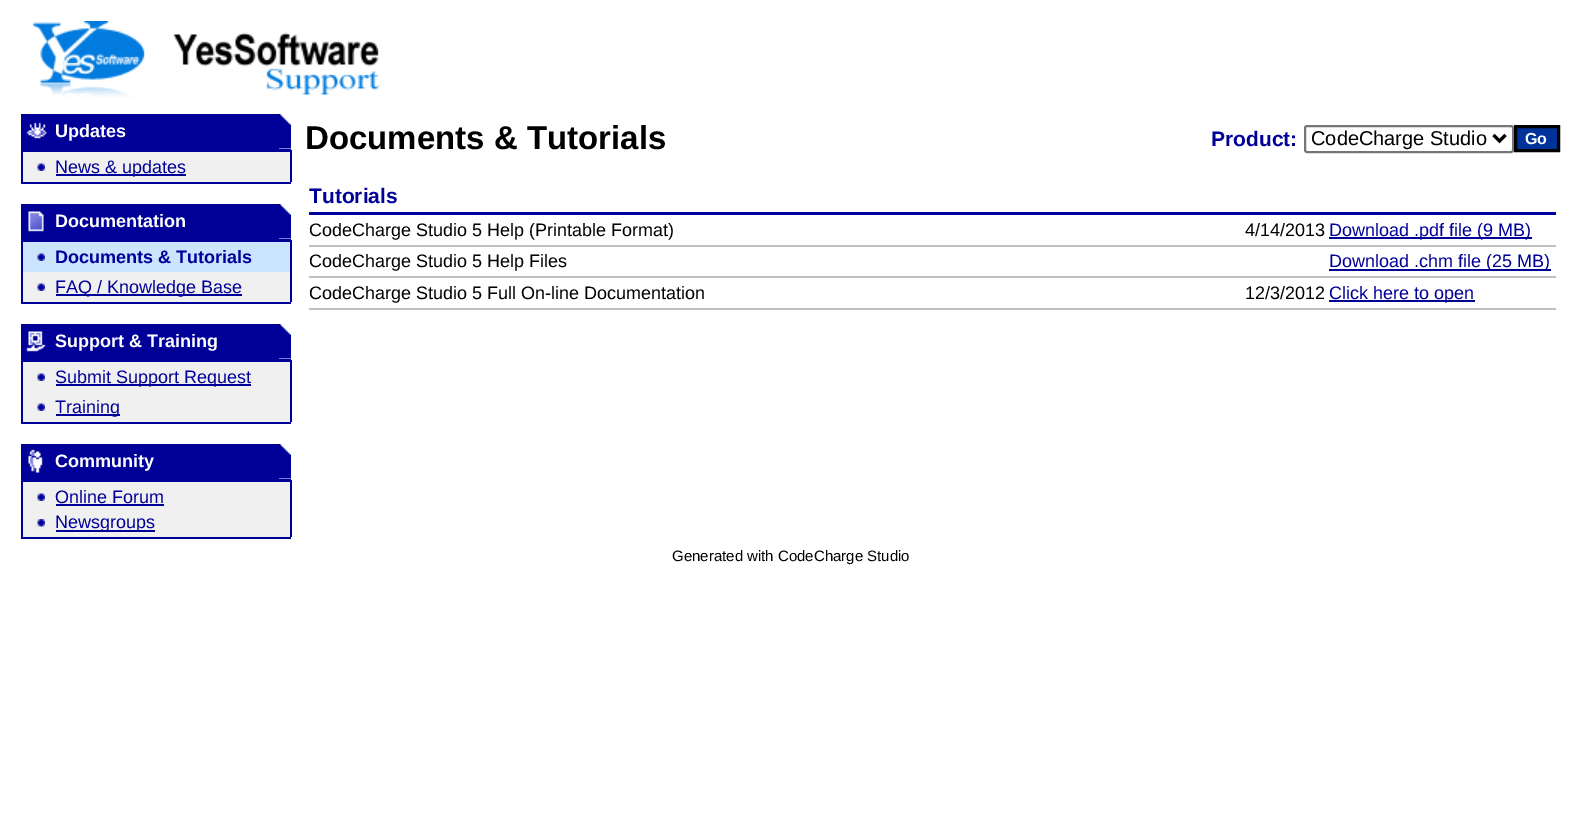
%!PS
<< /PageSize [1580 831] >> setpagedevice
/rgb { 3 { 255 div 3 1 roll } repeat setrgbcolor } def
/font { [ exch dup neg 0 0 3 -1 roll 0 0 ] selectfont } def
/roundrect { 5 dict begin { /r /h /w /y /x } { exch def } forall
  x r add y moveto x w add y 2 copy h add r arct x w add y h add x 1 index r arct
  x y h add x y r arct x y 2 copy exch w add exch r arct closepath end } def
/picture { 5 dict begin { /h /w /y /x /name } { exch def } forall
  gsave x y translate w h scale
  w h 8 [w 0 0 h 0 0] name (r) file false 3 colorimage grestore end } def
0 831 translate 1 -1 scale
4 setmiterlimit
255 255 255 rgb
0 0 1580 831 rectfill
(img/1.rgb) 32 21 348 77 picture
0 0 153 rgb
21 114 258 35 rectfill
(img/2.rgb) 26 122 21 17 picture
(img/3.rgb) 279 114 12 35 picture
[
  [21 149 270 1 0 0 153]
  [21 150 2 32 0 0 153]
  [23 150 267 2 0 0 153]
  [290 150 2 32 0 0 153]
  [23 152 267 30 240 240 240]
] { aload pop rgb rectfill } forall
(img/4.rgb) 37 163 8 8 picture
[
  [56 174 130 2 0 0 153]
  [21 182 270 2 0 0 153]
  [21 204 258 35 0 0 153]
] { aload pop rgb rectfill } forall
(img/5.rgb) 28 211 16 21 picture
(img/3.rgb) 279 204 12 35 picture
[
  [21 239 270 1 0 0 153]
  [21 240 2 62 0 0 153]
  [23 240 267 2 0 0 153]
  [290 240 2 62 0 0 153]
  [23 272 267 30 240 240 240]
  [23 242 267 4 204 229 255]
  [23 246 267 26 204 229 255]
] { aload pop rgb rectfill } forall
(img/6.rgb) 37 253 8 8 picture
(img/4.rgb) 37 283 8 8 picture
[
  [56 294 186 2 0 0 153]
  [21 302 270 2 0 0 153]
  [21 324 258 35 0 0 153]
] { aload pop rgb rectfill } forall
(img/7.rgb) 26 331 20 21 picture
(img/3.rgb) 279 324 12 35 picture
[
  [21 359 270 1 0 0 153]
  [21 360 2 62 0 0 153]
  [23 360 267 2 0 0 153]
  [290 360 2 62 0 0 153]
  [23 362 267 60 240 240 240]
] { aload pop rgb rectfill } forall
(img/4.rgb) 37 373 8 8 picture
0 0 153 rgb
56 384 195 2 rectfill
(img/4.rgb) 37 403 8 8 picture
[
  [56 414 64 2 0 0 153]
  [21 422 270 2 0 0 153]
  [21 444 258 35 0 0 153]
] { aload pop rgb rectfill } forall
(img/8.rgb) 28 449 15 24 picture
(img/3.rgb) 279 444 12 35 picture
[
  [21 479 270 1 0 0 153]
  [21 480 2 57 0 0 153]
  [23 480 267 2 0 0 153]
  [290 480 2 57 0 0 153]
  [23 482 267 55 240 240 240]
] { aload pop rgb rectfill } forall
(img/4.rgb) 37 493 8 8 picture
0 0 153 rgb
56 504 108 2 rectfill
(img/9.rgb) 37 519 8 8 picture
56 530 99 2 rectfill
21 537 270 2 rectfill
118 118 118 rgb
2 setlinewidth
1305 126 208 26 2 roundrect stroke
0 0 0 rgb
3 setlinewidth
1493.5 135 moveto 1499.5 141 lineto 1505.5 135 lineto stroke
0 51 153 rgb
1515.5 126.5 moveto 1558.5 126.5 lineto 1558.5 150.5 lineto 1515.5 150.5 lineto closepath gsave fill grestore
0 0 0 rgb
stroke
[
  [309 212 1247 3 0 0 156]
  [1329 237 203 2 0 0 153]
  [309 245 1247 2 192 192 192]
  [1329 269 222 2 0 0 153]
  [309 276 1247 2 192 192 192]
  [1329 300 146 2 0 0 153]
  [309 308 1247 2 192 192 192]
] { aload pop rgb rectfill } forall
/LiberationSans-Bold 18 font
255 255 255 rgb
55 137 moveto (Updates) show
/LiberationSans-Regular 18 font
0 0 153 rgb
55 173 moveto (News & updates) show
/LiberationSans-Bold 18 font
255 255 255 rgb
55 227 moveto (Documentation) show
0 0 153 rgb
55 263 moveto (Documents & Tutorials) show
/LiberationSans-Regular 18 font
55 293 moveto (FAQ / Knowledge Base) show
/LiberationSans-Bold 18 font
255 255 255 rgb
55 347 moveto (Support & Training) show
/LiberationSans-Regular 18 font
0 0 153 rgb
55 383 moveto (Submit Support Request) show
55 413 moveto (Training) show
/LiberationSans-Bold 18 font
255 255 255 rgb
55 467 moveto (Community) show
/LiberationSans-Regular 18 font
0 0 153 rgb
55 503 moveto (Online Forum) show
55 528 moveto (Newsgroups) show
/LiberationSans-Bold 33 font
0 0 0 rgb
305 149 moveto (Documents & Tutorials) show
/LiberationSans-Bold 21 font
0 0 153 rgb
1211 146 moveto (Product:) show
/LiberationSans-Regular 20 font
0 0 0 rgb
1311 145 moveto (CodeCharge Studio) show
/LiberationSans-Bold 16 font
255 255 255 rgb
1525 144 moveto (Go) show
/LiberationSans-Bold 21 font
0 0 153 rgb
309 203 moveto (Tutorials) show
/LiberationSans-Regular 18 font
0 0 0 rgb
309 236 moveto (CodeCharge Studio 5 Help \(Printable Format\)) show
1245 236 moveto (4/14/2013) show
0 0 153 rgb
1329 236 moveto (Download .pdf file \(9 MB\)) show
0 0 0 rgb
309 267 moveto (CodeCharge Studio 5 Help Files) show
0 0 153 rgb
1329 267 moveto (Download .chm file \(25 MB\)) show
0 0 0 rgb
309 299 moveto (CodeCharge Studio 5 Full On-line Documentation) show
1245 299 moveto (12/3/2012) show
0 0 153 rgb
1329 299 moveto (Click here to open) show
/LiberationSans-Regular 15 font
0 0 0 rgb
672 561 moveto (Generated with CodeCharge Studio) show
showpage
